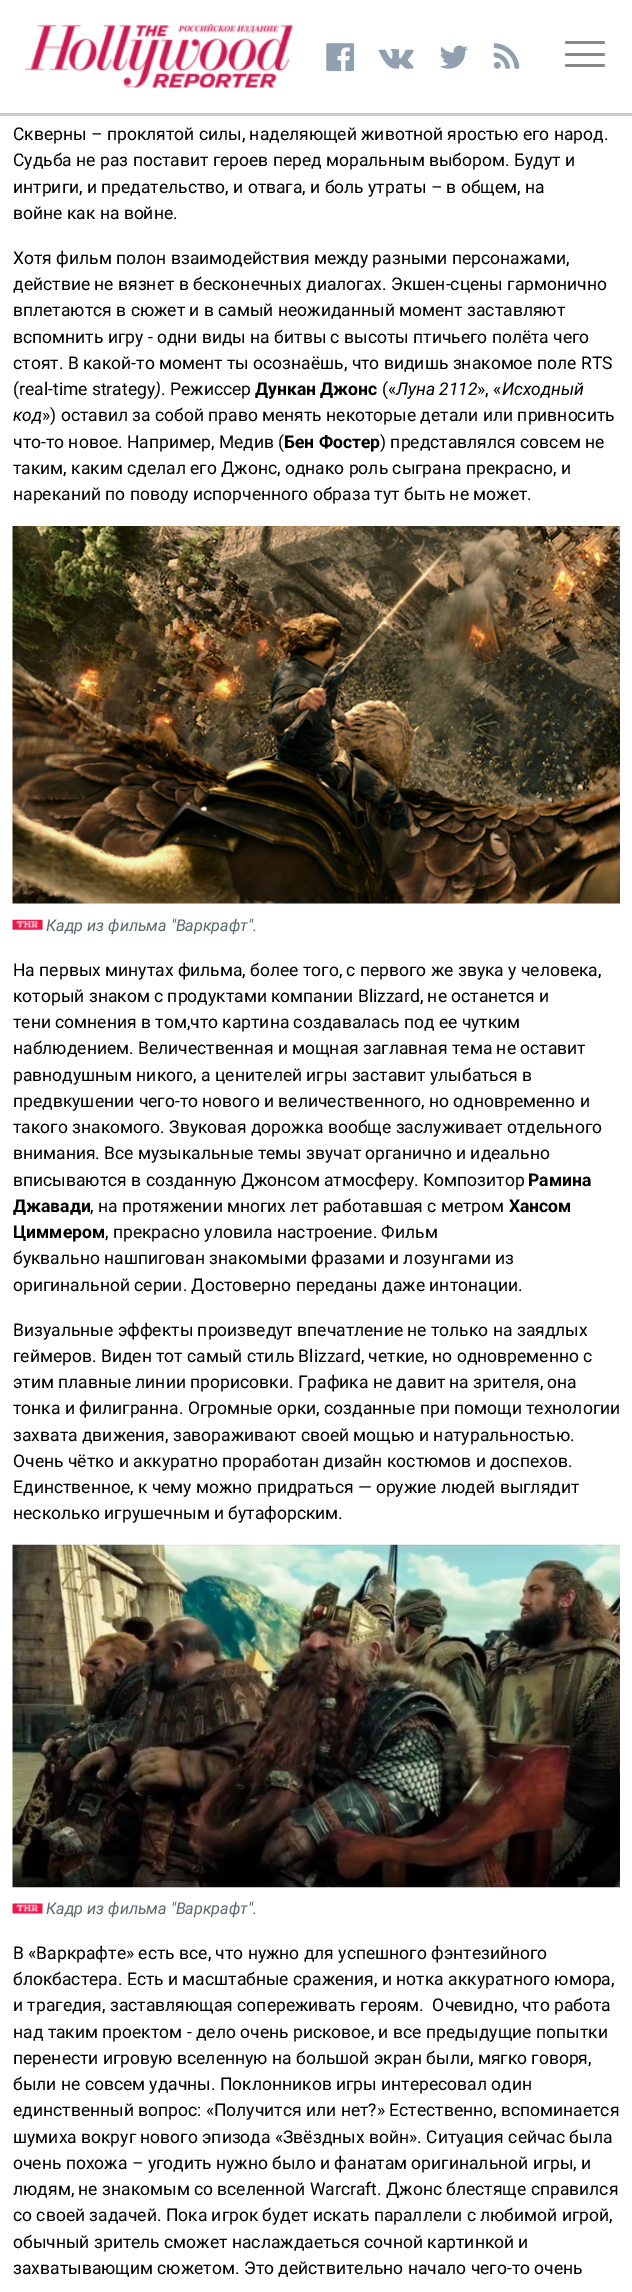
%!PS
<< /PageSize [632 2292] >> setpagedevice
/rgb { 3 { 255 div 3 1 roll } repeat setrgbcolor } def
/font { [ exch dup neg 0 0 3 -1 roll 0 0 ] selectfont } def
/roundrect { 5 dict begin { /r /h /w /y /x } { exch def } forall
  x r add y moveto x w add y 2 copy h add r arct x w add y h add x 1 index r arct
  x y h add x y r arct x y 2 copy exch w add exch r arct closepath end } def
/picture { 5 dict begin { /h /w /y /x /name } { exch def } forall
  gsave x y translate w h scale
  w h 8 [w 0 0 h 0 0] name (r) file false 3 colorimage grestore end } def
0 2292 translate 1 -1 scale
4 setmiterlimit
255 255 255 rgb
0 0 632 2292 rectfill
204 204 204 rgb
0 113 632 3 rectfill
(img/1.rgb) 25 23 268 65 picture
(img/2.rgb) 326 43 29 29 picture
(img/3.rgb) 378 48 36 21 picture
(img/4.rgb) 439 45 29 24 picture
(img/5.rgb) 493 43 27 26 picture
136 136 136 rgb
565 41 40 3 1.5 roundrect fill
565 53 40 3 1.5 roundrect fill
565 64 40 3 1.5 roundrect fill
(img/6.rgb) 12 526 608 378 picture
(img/7.rgb) 12 919 31 11 picture
(img/8.rgb) 12 1544 608 344 picture
(img/9.rgb) 12 1903 31 11 picture
/Roboto-Regular 17.5 font
0 0 0 rgb
[
  [(Скверны – проклятой силы, наделяющей животной яростью его народ.) 13 140]
  [(Судьба не раз поставит героев перед моральным выбором. Будут и) 13 166]
  [(интриги, и предательство, и отвага, и боль утраты – в общем, на) 13 193]
  [(войне как на войне.) 13 219]
  [(Хотя фильм полон взаимодействия между разными персонажами,) 13 264]
  [(действие не вязнет в бесконечных диалогах. Экшен-сцены гармонично) 13 290]
  [(вплетаются в сюжет и в самый неожиданный момент заставляют) 13 316]
  [(вспомнить игру - одни виды на битвы с высоты птичьего полёта чего) 13 343]
  [(стоят. В какой-то момент ты осознаёшь, что видишь знакомое поле RTS) 13 369]
  [(\(real-time strategy) 13 395]
] { aload pop moveto show } forall
/Roboto-Italic 17.5 font
155 395 moveto (\)) show
/Roboto-Regular 17.5 font
161 395 moveto (. Режиссер) show
/Roboto-Bold 17.5 font
255 395 moveto (Дункан Джонс) show
/Roboto-Regular 17.5 font
382 395 moveto (\(«) show
/Roboto-Italic 17.5 font
396 395 moveto (Луна 2112) show
/Roboto-Regular 17.5 font
477 395 moveto (», «) show
/Roboto-Italic 17.5 font
502 395 moveto (Исходный) show
13 421 moveto (код) show
/Roboto-Regular 17.5 font
42 421 moveto (»\) оставил за собой право менять некоторые детали или привносить) show
13 448 moveto (что-то новое. Например, Медив \() show
/Roboto-Bold 17.5 font
284 448 moveto (Бен Фостер) show
/Roboto-Regular 17.5 font
[
  [(\) представлялся совсем не) 380 448]
  [(таким, каким сделал его Джонс, однако роль сыграна прекрасно, и) 13 474]
  [(нареканий по поводу испорченного образа тут быть не может.) 13 500]
] { aload pop moveto show } forall
/Roboto-Italic 16.25 font
91 106 109 rgb
46 931 moveto (Кадр из фильма "Варкрафт".) show
/Roboto-Regular 17.5 font
0 0 0 rgb
[
  [(На первых минутах фильма, более того, с первого же звука у человека,) 13 976]
  [(который знаком с продуктами компании Blizzard, не останется и) 13 1002]
  [(тени сомнения в том,что картина создавалась под ее чутким) 13 1028]
  [(наблюдением. Величественная и мощная заглавная тема не оставит) 13 1054]
  [(равнодушным никого, а ценителей игры заставит улыбаться в) 13 1081]
  [(предвкушении чего-то нового и величественного, но одновременно и) 13 1107]
  [(такого знакомого. Звуковая дорожка вообще заслуживает отдельного) 13 1133]
  [(внимания. Все музыкальные темы звучат органично и идеально) 13 1159]
  [(вписываются в созданную Джонсом атмосферу. Композитор) 13 1186]
] { aload pop moveto show } forall
/Roboto-Bold 17.5 font
528 1186 moveto (Рамина) show
13 1212 moveto (Джавади) show
/Roboto-Regular 17.5 font
90 1212 moveto (, на протяжении многих лет работавшая с метром) show
/Roboto-Bold 17.5 font
509 1212 moveto (Хансом) show
13 1238 moveto (Циммером) show
/Roboto-Regular 17.5 font
[
  [(, прекрасно уловила настроение. Фильм) 105 1238]
  [(буквально нашпигован знакомыми фразами и лозунгами из) 13 1264]
  [(оригинальной серии. Достоверно переданы даже интонации.) 13 1291]
  [(Визуальные эффекты произведут впечатление не только на заядлых) 13 1336]
  [(геймеров. Виден тот самый стиль Blizzard, четкие, но одновременно с) 13 1362]
  [(этим плавные линии прорисовки. Графика не давит на зрителя, она) 13 1388]
  [(тонка и филигранна. Огромные орки, созданные при помощи технологии) 13 1414]
  [(захвата движения, завораживают своей мощью и натуральностью.) 13 1441]
  [(Очень чётко и аккуратно проработан дизайн костюмов и доспехов.) 13 1467]
  [(Единственное, к чему можно придраться — оружие людей выглядит) 13 1493]
  [(несколько игрушечным и бутафорским.) 13 1519]
] { aload pop moveto show } forall
/Roboto-Italic 16.25 font
91 106 109 rgb
46 1914 moveto (Кадр из фильма "Варкрафт".) show
/Roboto-Regular 17.5 font
0 0 0 rgb
[
  [(В «Варкрафте» есть все, что нужно для успешного фэнтезийного) 13 1959]
  [(блокбастера. Есть и масштабные сражения, и нотка аккуратного юмора,) 13 1985]
  [(и трагедия, заставляющая сопереживать героям.  Очевидно, что работа) 13 2011]
  [(над таким проектом - дело очень рисковое, и все предыдущие попытки) 13 2038]
  [(перенести игровую вселенную на большой экран были, мягко говоря,) 13 2064]
  [(были не совсем удачны. Поклонников игры интересовал один) 13 2090]
  [(единственный вопрос: «Получится или нет?» Естественно, вспоминается) 13 2116]
  [(шумиха вокруг нового эпизода «Звёздных войн». Ситуация сейчас была) 13 2143]
  [(очень похожа – угодить нужно было и фанатам оригинальной игры, и) 13 2169]
  [(людям, не знакомым со вселенной Warcraft. Джонс блестяще справился) 13 2195]
  [(со своей задачей. Пока игрок будет искать параллели с любимой игрой,) 13 2221]
  [(обычный зритель сможет наслаждаеться сочной картинкой и) 13 2248]
  [(захватывающим сюжетом. Это действительно начало чего-то очень) 13 2274]
] { aload pop moveto show } forall
showpage
